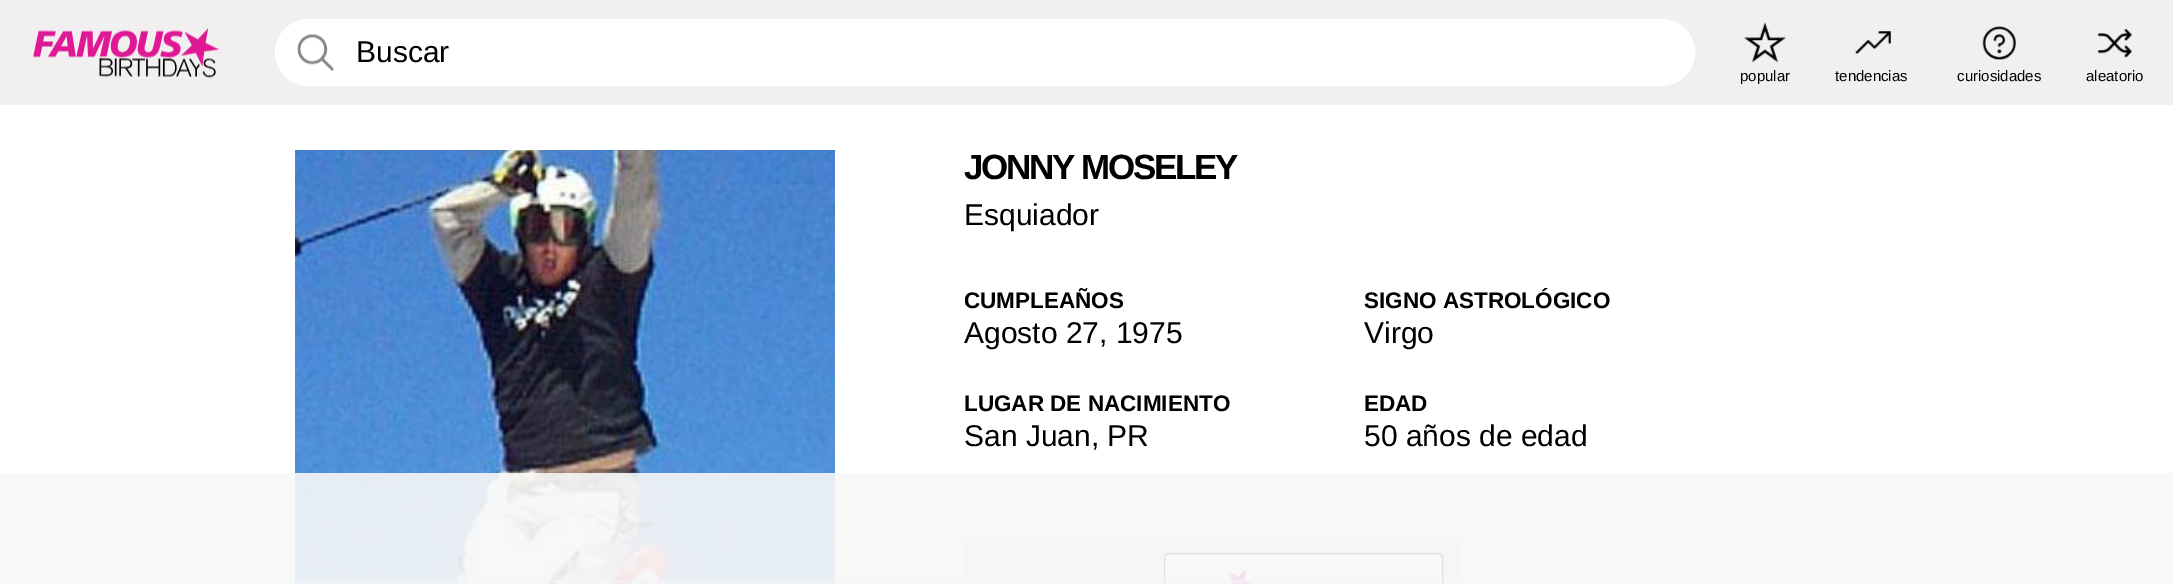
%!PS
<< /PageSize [2173 584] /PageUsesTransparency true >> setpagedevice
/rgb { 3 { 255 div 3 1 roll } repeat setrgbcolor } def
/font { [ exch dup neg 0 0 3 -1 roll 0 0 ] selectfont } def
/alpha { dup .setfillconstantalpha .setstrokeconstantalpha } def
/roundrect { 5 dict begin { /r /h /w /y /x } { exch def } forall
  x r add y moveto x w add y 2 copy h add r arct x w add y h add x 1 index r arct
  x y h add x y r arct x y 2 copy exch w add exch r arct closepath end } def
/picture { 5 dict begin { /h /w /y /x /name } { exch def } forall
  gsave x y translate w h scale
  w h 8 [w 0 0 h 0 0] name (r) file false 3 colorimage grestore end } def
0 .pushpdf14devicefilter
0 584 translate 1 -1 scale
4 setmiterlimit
255 255 255 rgb
0 0 2173 584 rectfill
241 239 239 rgb
0 0 2173 105 rectfill
(img/1.rgb) 33 28 186 50 picture
255 255 255 rgb
276.5 20.5 1417 64 32 roundrect gsave fill grestore
3 setlinewidth
stroke
(img/2.rgb) 297 34 37 37 picture
(img/3.rgb) 1744 22 42 41 picture
(img/4.rgb) 1855 31 36 23 picture
(img/5.rgb) 1982 26 34 35 picture
(img/6.rgb) 2097 29 35 29 picture
(img/7.rgb) 295 150 540 434 picture
255 229 245 rgb
965 538 495 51 5 roundrect fill
255 255 255 rgb
1164.5 553.5 278 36 4.5 roundrect gsave fill grestore
0 0 0 rgb
1 setlinewidth
stroke
(img/8.rgb) 1228 569 24 15 picture
0.35 alpha
[
  [295 580 1165 4 249 249 249]
] { aload pop rgb rectfill } forall
0.7 alpha
[
  [0 580 2173 1 222 222 222]
] { aload pop rgb rectfill } forall
0.9 alpha
[
  [0 473 2173 111 247 247 247]
] { aload pop rgb rectfill } forall
/LiberationSans-Regular 30 font
1 alpha
0 0 0 rgb
356 62 moveto (Buscar) show
/LiberationSans-Regular 15 font
[
  [(popular) 1740 81]
  [(tendencias) 1835 81]
  [(curiosidades) 1957 81]
  [(aleatorio) 2086 81]
] { aload pop moveto show } forall
/LiberationSans-Bold 35 font
964 179 moveto -2.25 0 (JONNY MOSELEY) ashow
/LiberationSans-Regular 30 font
964 225 moveto (Esquiador) show
/LiberationSans-Bold 22.5 font
964 308 moveto (CUMPLEAÑOS) show
/LiberationSans-Regular 30 font
964 343 moveto (Agosto 27, 1975) show
/LiberationSans-Bold 22.5 font
1364 308 moveto (SIGNO ASTROLÓGICO) show
/LiberationSans-Regular 30 font
1364 343 moveto (Virgo) show
/LiberationSans-Bold 22.5 font
964 411 moveto (LUGAR DE NACIMIENTO) show
/LiberationSans-Regular 30 font
964 446 moveto (San Juan, PR) show
/LiberationSans-Bold 22.5 font
1364 411 moveto (EDAD) show
/LiberationSans-Regular 30 font
1364 446 moveto (50 años de edad) show
.poppdf14devicefilter showpage
